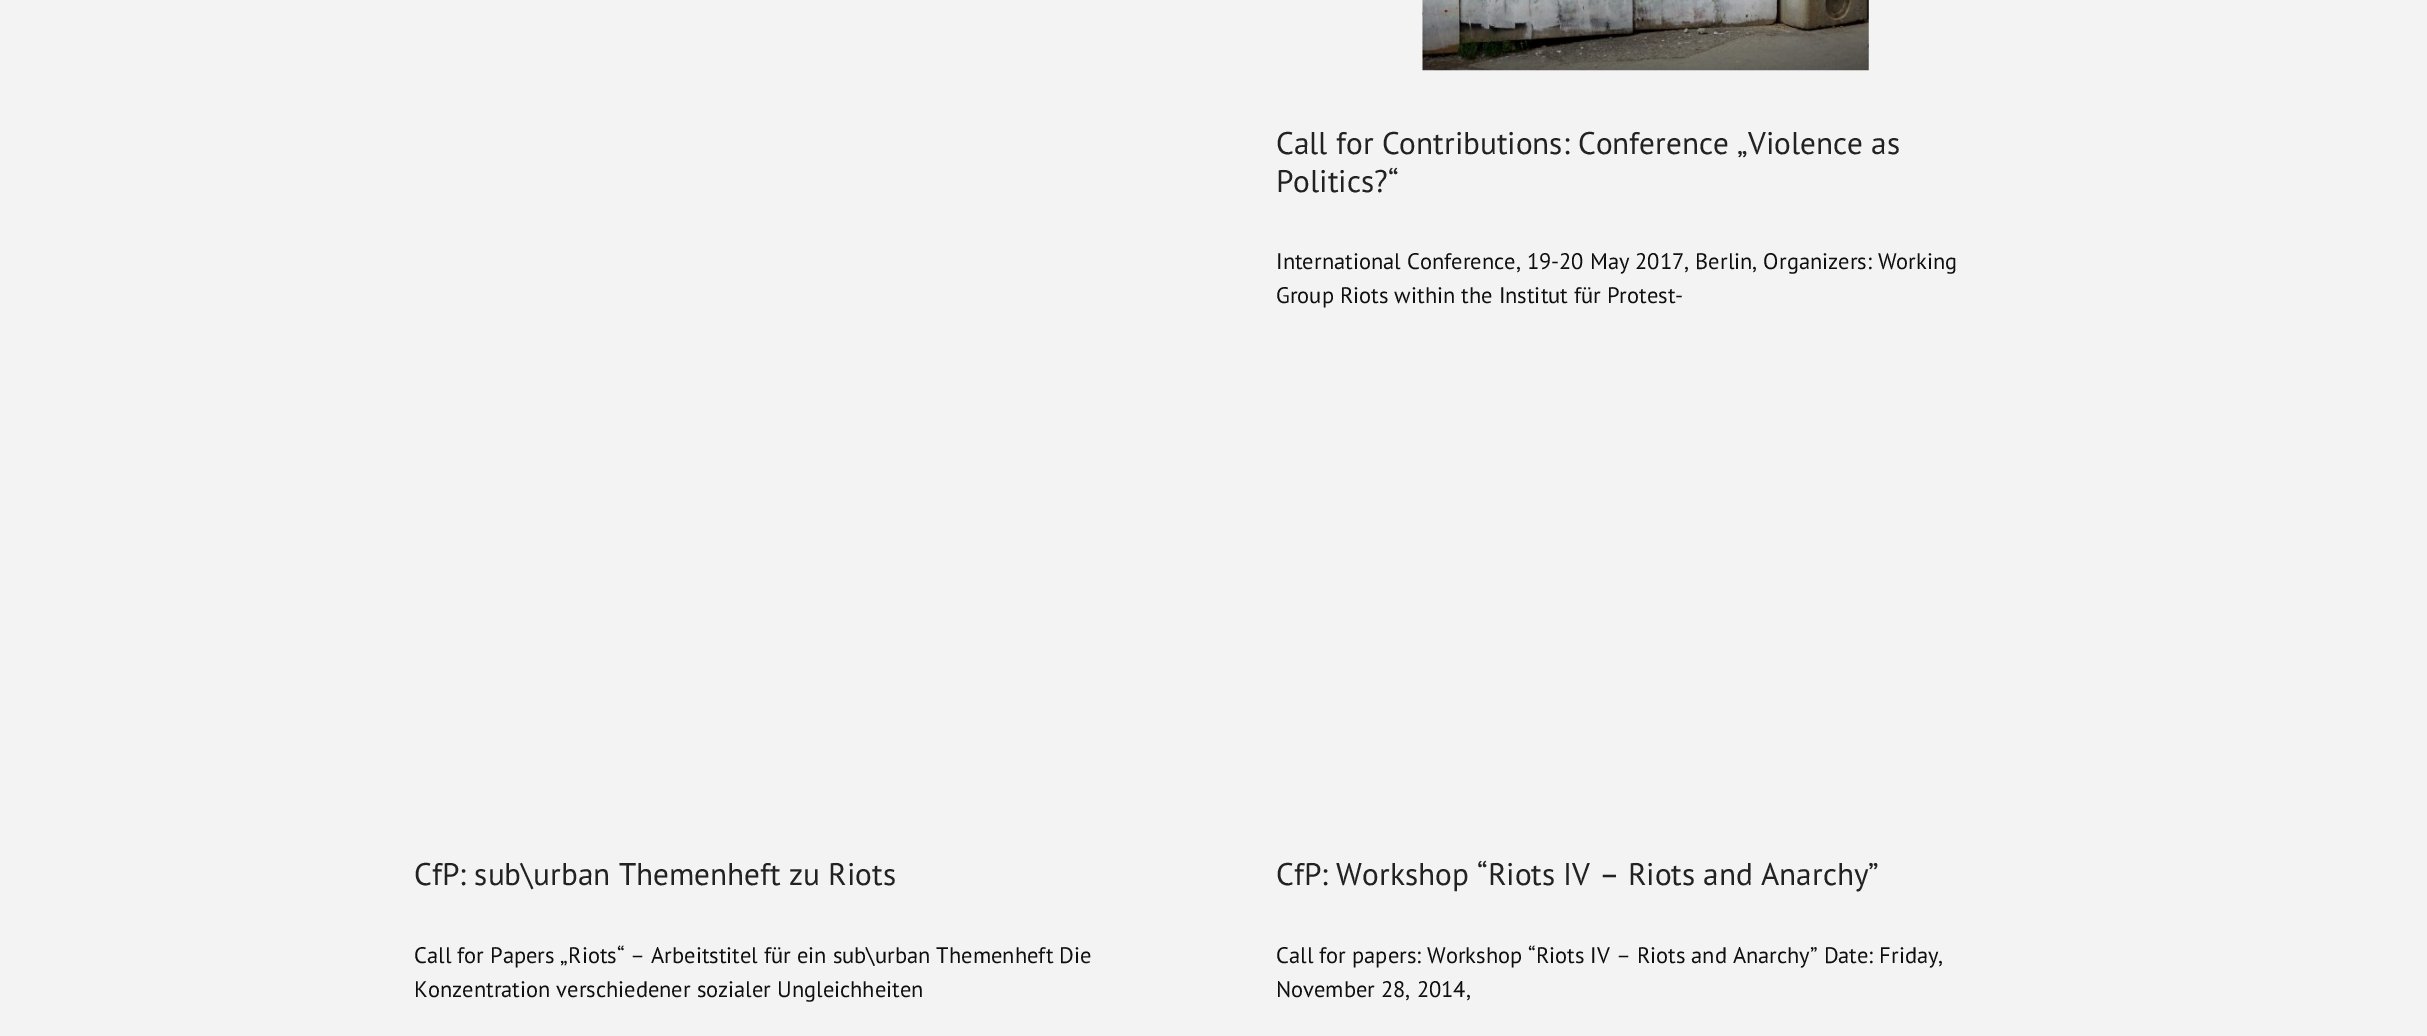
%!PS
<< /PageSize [2427 1036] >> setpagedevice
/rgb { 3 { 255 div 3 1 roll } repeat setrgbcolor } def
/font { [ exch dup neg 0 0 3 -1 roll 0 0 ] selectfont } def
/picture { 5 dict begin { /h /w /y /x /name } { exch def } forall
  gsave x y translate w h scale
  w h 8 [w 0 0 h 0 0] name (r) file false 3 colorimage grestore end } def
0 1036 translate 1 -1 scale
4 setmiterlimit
243 243 243 rgb
0 0 2427 1036 rectfill
(img/1.rgb) 1422 0 447 71 picture
/PTSans-Regular 31.25 font
34 34 34 rgb
1276 154 moveto (Call for Contributions: Conference „Violence as) show
1276 192 moveto (Politics?“) show
/PTSans-Regular 22.5 font
15 15 15 rgb
1276 269 moveto (International Conference, 19-20 May 2017, Berlin, Organizers: Working) show
1276 303 moveto (Group Riots within the Institut für Protest-) show
/PTSans-Regular 31.25 font
34 34 34 rgb
414 885 moveto (CfP: sub\\urban Themenheft zu Riots) show
/PTSans-Regular 22.5 font
15 15 15 rgb
414 963 moveto (Call for Papers „Riots“ – Arbeitstitel für ein sub\\urban Themenheft Die) show
414 997 moveto (Konzentration verschiedener sozialer Ungleichheiten) show
/PTSans-Regular 31.25 font
34 34 34 rgb
1276 885 moveto (CfP: Workshop “Riots IV – Riots and Anarchy”) show
/PTSans-Regular 22.5 font
15 15 15 rgb
1276 963 moveto (Call for papers: Workshop “Riots IV – Riots and Anarchy” Date: Friday,) show
1276 997 moveto (November 28, 2014,) show
showpage
